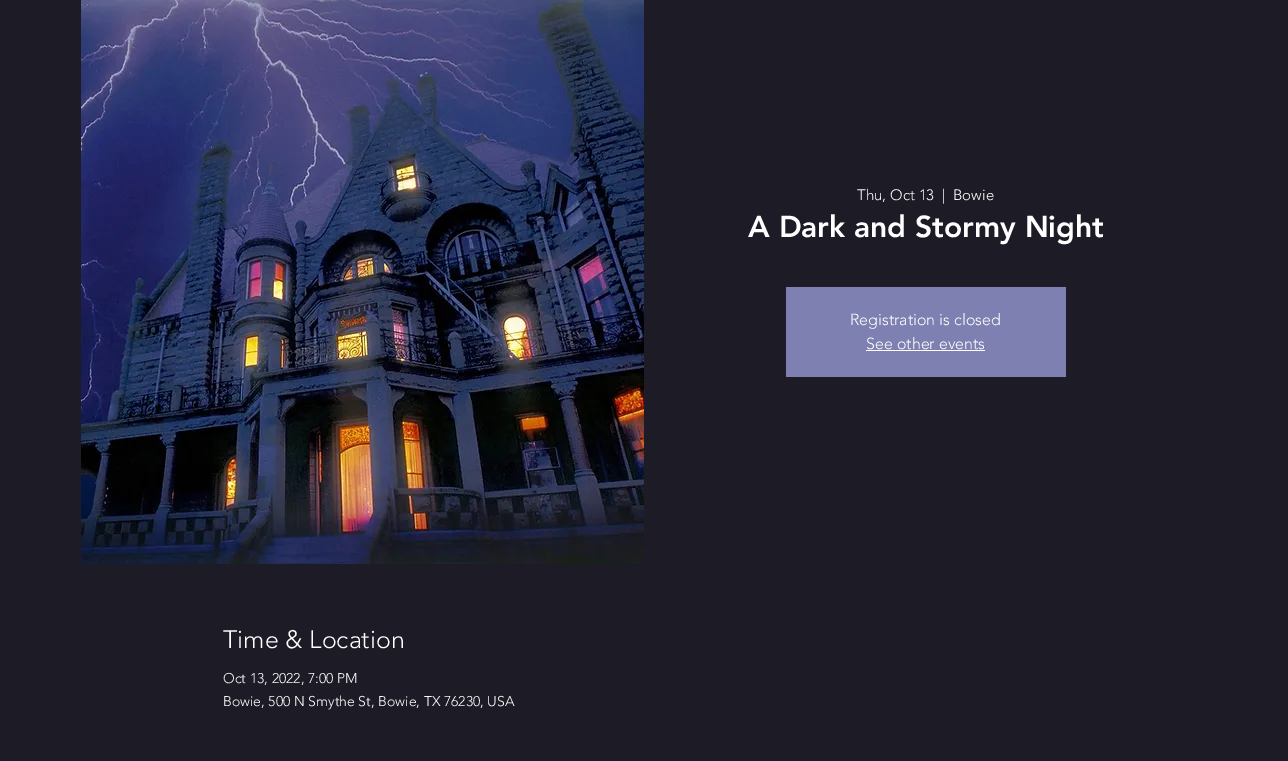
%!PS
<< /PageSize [1288 761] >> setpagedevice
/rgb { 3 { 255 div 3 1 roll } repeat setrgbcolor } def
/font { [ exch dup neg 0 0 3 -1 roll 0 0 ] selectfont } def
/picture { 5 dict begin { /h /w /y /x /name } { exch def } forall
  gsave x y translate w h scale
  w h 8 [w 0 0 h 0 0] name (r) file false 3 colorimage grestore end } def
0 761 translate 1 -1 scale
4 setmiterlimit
29 27 38 rgb
0 0 1288 761 rectfill
(img/1.rgb) 81 0 563 564 picture
126 128 177 rgb
786 287 280 90 rectfill
255 255 255 rgb
866 350 119 1 rectfill
/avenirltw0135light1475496-Light 15 font
[
  [(Thu, Oct 13) 857 200]
  [(|) 942 200]
  [(Bowie) 953 200]
] { aload pop moveto show } forall
/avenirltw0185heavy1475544-Black 30 font
748 237 moveto (A Dark and Stormy Night) show
/avenirltw0135light1475496-Light 16 font
850 325 moveto (Registration is closed) show
866 349 moveto (See other events) show
/avenirltw0135light1475496-Light 25 font
223 648 moveto (Time & Location) show
/avenirltw0135light1475496-Light 14 font
223 683 moveto (Oct 13, 2022, 7:00 PM) show
223 706 moveto (Bowie, 500 N Smythe St, Bowie, TX 76230, USA) show
showpage
